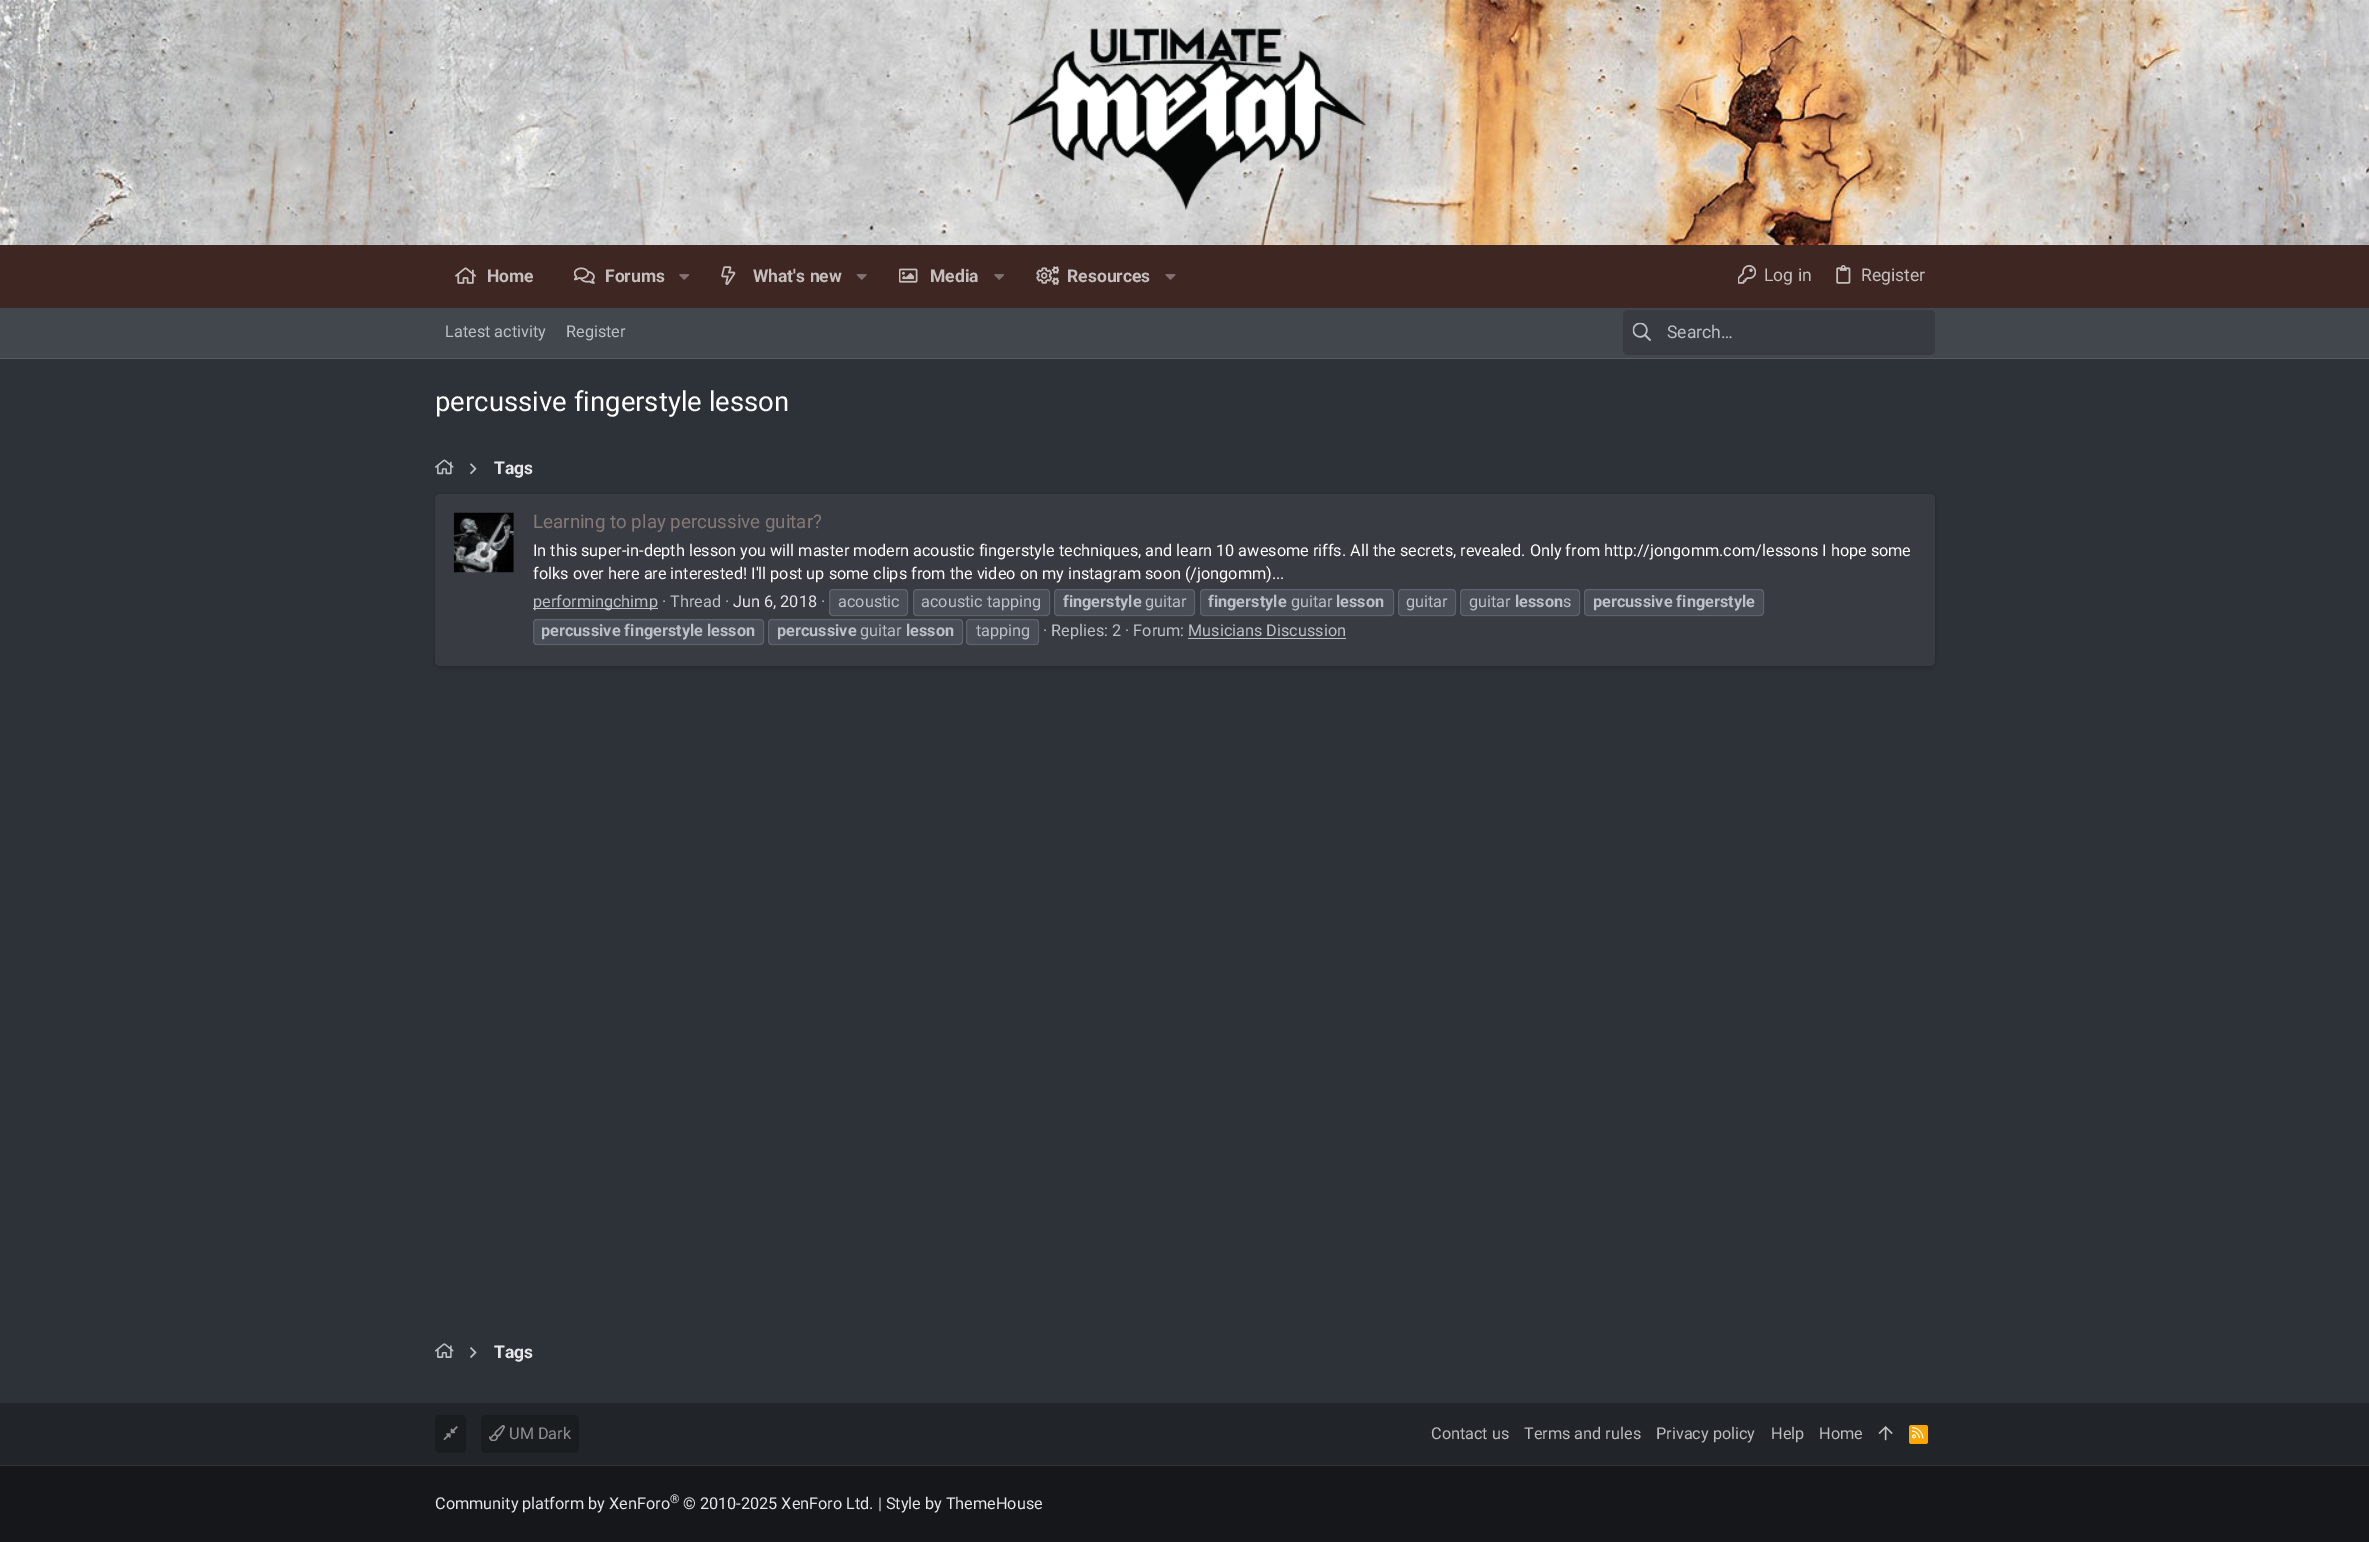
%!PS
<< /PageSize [2369 1542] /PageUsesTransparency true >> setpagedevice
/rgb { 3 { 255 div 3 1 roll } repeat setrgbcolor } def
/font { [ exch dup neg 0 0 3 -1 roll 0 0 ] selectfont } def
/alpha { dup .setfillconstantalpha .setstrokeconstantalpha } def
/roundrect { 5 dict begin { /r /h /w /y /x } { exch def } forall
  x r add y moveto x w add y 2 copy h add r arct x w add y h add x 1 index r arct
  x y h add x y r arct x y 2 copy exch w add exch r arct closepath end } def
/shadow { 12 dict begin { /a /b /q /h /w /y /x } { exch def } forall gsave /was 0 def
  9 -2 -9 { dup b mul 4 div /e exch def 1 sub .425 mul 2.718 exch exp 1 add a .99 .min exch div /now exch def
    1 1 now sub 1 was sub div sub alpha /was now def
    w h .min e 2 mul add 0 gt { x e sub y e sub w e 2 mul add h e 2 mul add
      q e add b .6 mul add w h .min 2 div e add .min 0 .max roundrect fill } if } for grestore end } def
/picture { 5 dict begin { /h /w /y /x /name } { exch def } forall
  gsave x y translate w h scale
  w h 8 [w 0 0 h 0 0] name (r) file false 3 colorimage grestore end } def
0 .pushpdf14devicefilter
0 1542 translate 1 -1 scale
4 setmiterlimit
45 50 56 rgb
0 0 2369 1542 rectfill
(img/1.rgb) 0 0 2369 245 picture
(img/2.rgb) 1007 27 360 184 picture
62 39 34 rgb
0 245 2369 63 rectfill
(img/3.rgb) 455 267 21 17 picture
(img/4.rgb) 574 267 21 17 picture
(img/5.rgb) 679 274 11 6 picture
(img/6.rgb) 721 266 15 19 picture
(img/7.rgb) 856 274 11 6 picture
(img/8.rgb) 899 268 19 15 picture
(img/9.rgb) 994 274 10 6 picture
(img/10.rgb) 1036 266 23 19 picture
(img/11.rgb) 1165 274 11 6 picture
(img/12.rgb) 1738 265 18 19 picture
(img/13.rgb) 1836 265 15 19 picture
66 70 77 rgb
0 308 2369 50 rectfill
89 92 98 rgb
0 358 2369 1 rectfill
56 60 66 rgb
1623 310 312 45 5 roundrect fill
(img/14.rgb) 1632 322 19 19 picture
(img/15.rgb) 435 459 19 16 picture
(img/16.rgb) 470 463 7 12 picture
0 0 0 rgb
435 495 1500 173 5 3 0.2 shadow
56 60 66 rgb
435 494 1500 172 5 roundrect fill
(img/17.rgb) 453 512 61 61 picture
188 192 199 rgb
533 608 125 1 rectfill
72 77 86 rgb
829 589 79 27 4 roundrect fill
0.12 alpha
255 255 255 rgb
829.5 589.5 78 26 3.5 roundrect stroke
1 alpha
72 77 86 rgb
913 589 137 27 4 roundrect fill
0.12 alpha
255 255 255 rgb
913.5 589.5 136 26 3.5 roundrect stroke
1 alpha
72 77 86 rgb
1054 589 141 27 4 roundrect fill
0.12 alpha
255 255 255 rgb
1054.5 589.5 140 26 3.5 roundrect stroke
1 alpha
72 77 86 rgb
1200 589 194 27 4 roundrect fill
0.12 alpha
255 255 255 rgb
1200.5 589.5 193 26 3.5 roundrect stroke
1 alpha
72 77 86 rgb
1398 589 58 27 4 roundrect fill
0.12 alpha
255 255 255 rgb
1398.5 589.5 57 26 3.5 roundrect stroke
1 alpha
72 77 86 rgb
1460 589 120 27 4 roundrect fill
0.12 alpha
255 255 255 rgb
1460.5 589.5 119 26 3.5 roundrect stroke
1 alpha
72 77 86 rgb
1584 589 180 27 4 roundrect fill
0.12 alpha
255 255 255 rgb
1584.5 589.5 179 26 3.5 roundrect stroke
1 alpha
72 77 86 rgb
533 619 231 26 4 roundrect fill
0.12 alpha
255 255 255 rgb
533.5 619.5 230 25 3.5 roundrect stroke
1 alpha
72 77 86 rgb
768 619 195 26 4 roundrect fill
0.12 alpha
255 255 255 rgb
768.5 619.5 194 25 3.5 roundrect stroke
1 alpha
72 77 86 rgb
966 619 73 26 4 roundrect fill
0.12 alpha
255 255 255 rgb
966.5 619.5 72 25 3.5 roundrect stroke
1 alpha
188 192 199 rgb
1188 638 158 1 rectfill
(img/18.rgb) 435 1343 19 15 picture
(img/19.rgb) 470 1347 7 11 picture
33 36 40 rgb
0 1403 2369 62 rectfill
26 29 32 rgb
435 1415 31 38 5 roundrect fill
(img/20.rgb) 443 1426 15 14 picture
481 1415 98 38 5 roundrect fill
(img/21.rgb) 489 1425 16 16 picture
(img/22.rgb) 1878 1426 15 15 picture
255 165 0 rgb
1909 1425 19 19 2.5 roundrect fill
(img/23.rgb) 1912 1427 12 12 picture
21 23 26 rgb
0 1466 2369 76 rectfill
49 51 53 rgb
0 1465 2369 1 rectfill
/Roboto-Bold 17.5 font
197 190 189 rgb
[
  [(Home) 487 282]
  [(Forums) 605 282]
  [(What's new) 753 282]
  [(Media) 930 282]
  [(Resources) 1067 282]
] { aload pop moveto show } forall
/Roboto-Regular 17.5 font
1764 281 moveto (Log in) show
1861 281 moveto (Register) show
/Roboto-Regular 16.25 font
188 192 199 rgb
445 337 moveto (Latest activity) show
566 337 moveto (Register) show
/Roboto-Regular 17.5 font
1667 338 moveto (Search…) show
/Roboto-Regular 27.5 font
255 255 255 rgb
435 411 moveto (percussive fingerstyle lesson) show
/Roboto-Bold 17.5 font
230 231 234 rgb
494 474 moveto (Tags) show
/Roboto-Regular 18.75 font
133 120 118 rgb
533 528 moveto (Learning to play percussive guitar?) show
/Roboto-Regular 16.25 font
255 255 255 rgb
533 556 moveto (In this super-in-depth lesson you will master modern acoustic fingerstyle techniques, and learn 10 awesome riffs. All the secrets, revealed. Only from http://jongomm.com/lessons I hope some) show
533 579 moveto (folks over here are interested! I'll post up some clips from the video on my instagram soon \(/jongomm\)...) show
188 192 199 rgb
[
  [(performingchimp · Thread ·) 533 607]
  [(·) 821 607]
  [(acoustic) 838 607]
  [(acoustic tapping) 921 607]
] { aload pop moveto show } forall
/Roboto-Bold 16.25 font
1063 607 moveto (fingerstyle) show
/Roboto-Regular 16.25 font
1145 607 moveto (guitar) show
/Roboto-Bold 16.25 font
1208 607 moveto (fingerstyle) show
/Roboto-Regular 16.25 font
1291 607 moveto (guitar) show
/Roboto-Bold 16.25 font
1336 607 moveto (lesson) show
/Roboto-Regular 16.25 font
1406 607 moveto (guitar) show
1469 607 moveto (guitar) show
/Roboto-Bold 16.25 font
1515 607 moveto (lesson) show
/Roboto-Regular 16.25 font
1563 607 moveto (s) show
/Roboto-Bold 16.25 font
[
  [(percussive fingerstyle) 1593 607]
  [(percussive fingerstyle lesson) 541 636]
  [(percussive) 777 636]
] { aload pop moveto show } forall
/Roboto-Regular 16.25 font
860 636 moveto (guitar) show
/Roboto-Bold 16.25 font
906 636 moveto (lesson) show
/Roboto-Regular 16.25 font
976 636 moveto (tapping) show
230 231 234 rgb
733 607 moveto (Jun 6, 2018) show
188 192 199 rgb
1043 636 moveto (· Replies: 2 · Forum: Musicians Discussion) show
/Roboto-Bold 17.5 font
230 231 234 rgb
494 1358 moveto (Tags) show
/Roboto-Regular 16.25 font
141 142 144 rgb
509 1439 moveto (UM Dark) show
188 189 191 rgb
[
  [(Contact us) 1431 1439]
  [(Terms and rules) 1524 1439]
  [(Privacy policy) 1656 1439]
  [(Help) 1771 1439]
  [(Home) 1819 1439]
] { aload pop moveto show } forall
230 231 234 rgb
435 1509 moveto (Community platform by XenForo) show
/Roboto-Regular 12 font
670 1503 moveto (®) show
/Roboto-Regular 16.25 font
683 1509 moveto (© 2010-2025 XenForo Ltd. | Style by ThemeHouse) show
.poppdf14devicefilter showpage
